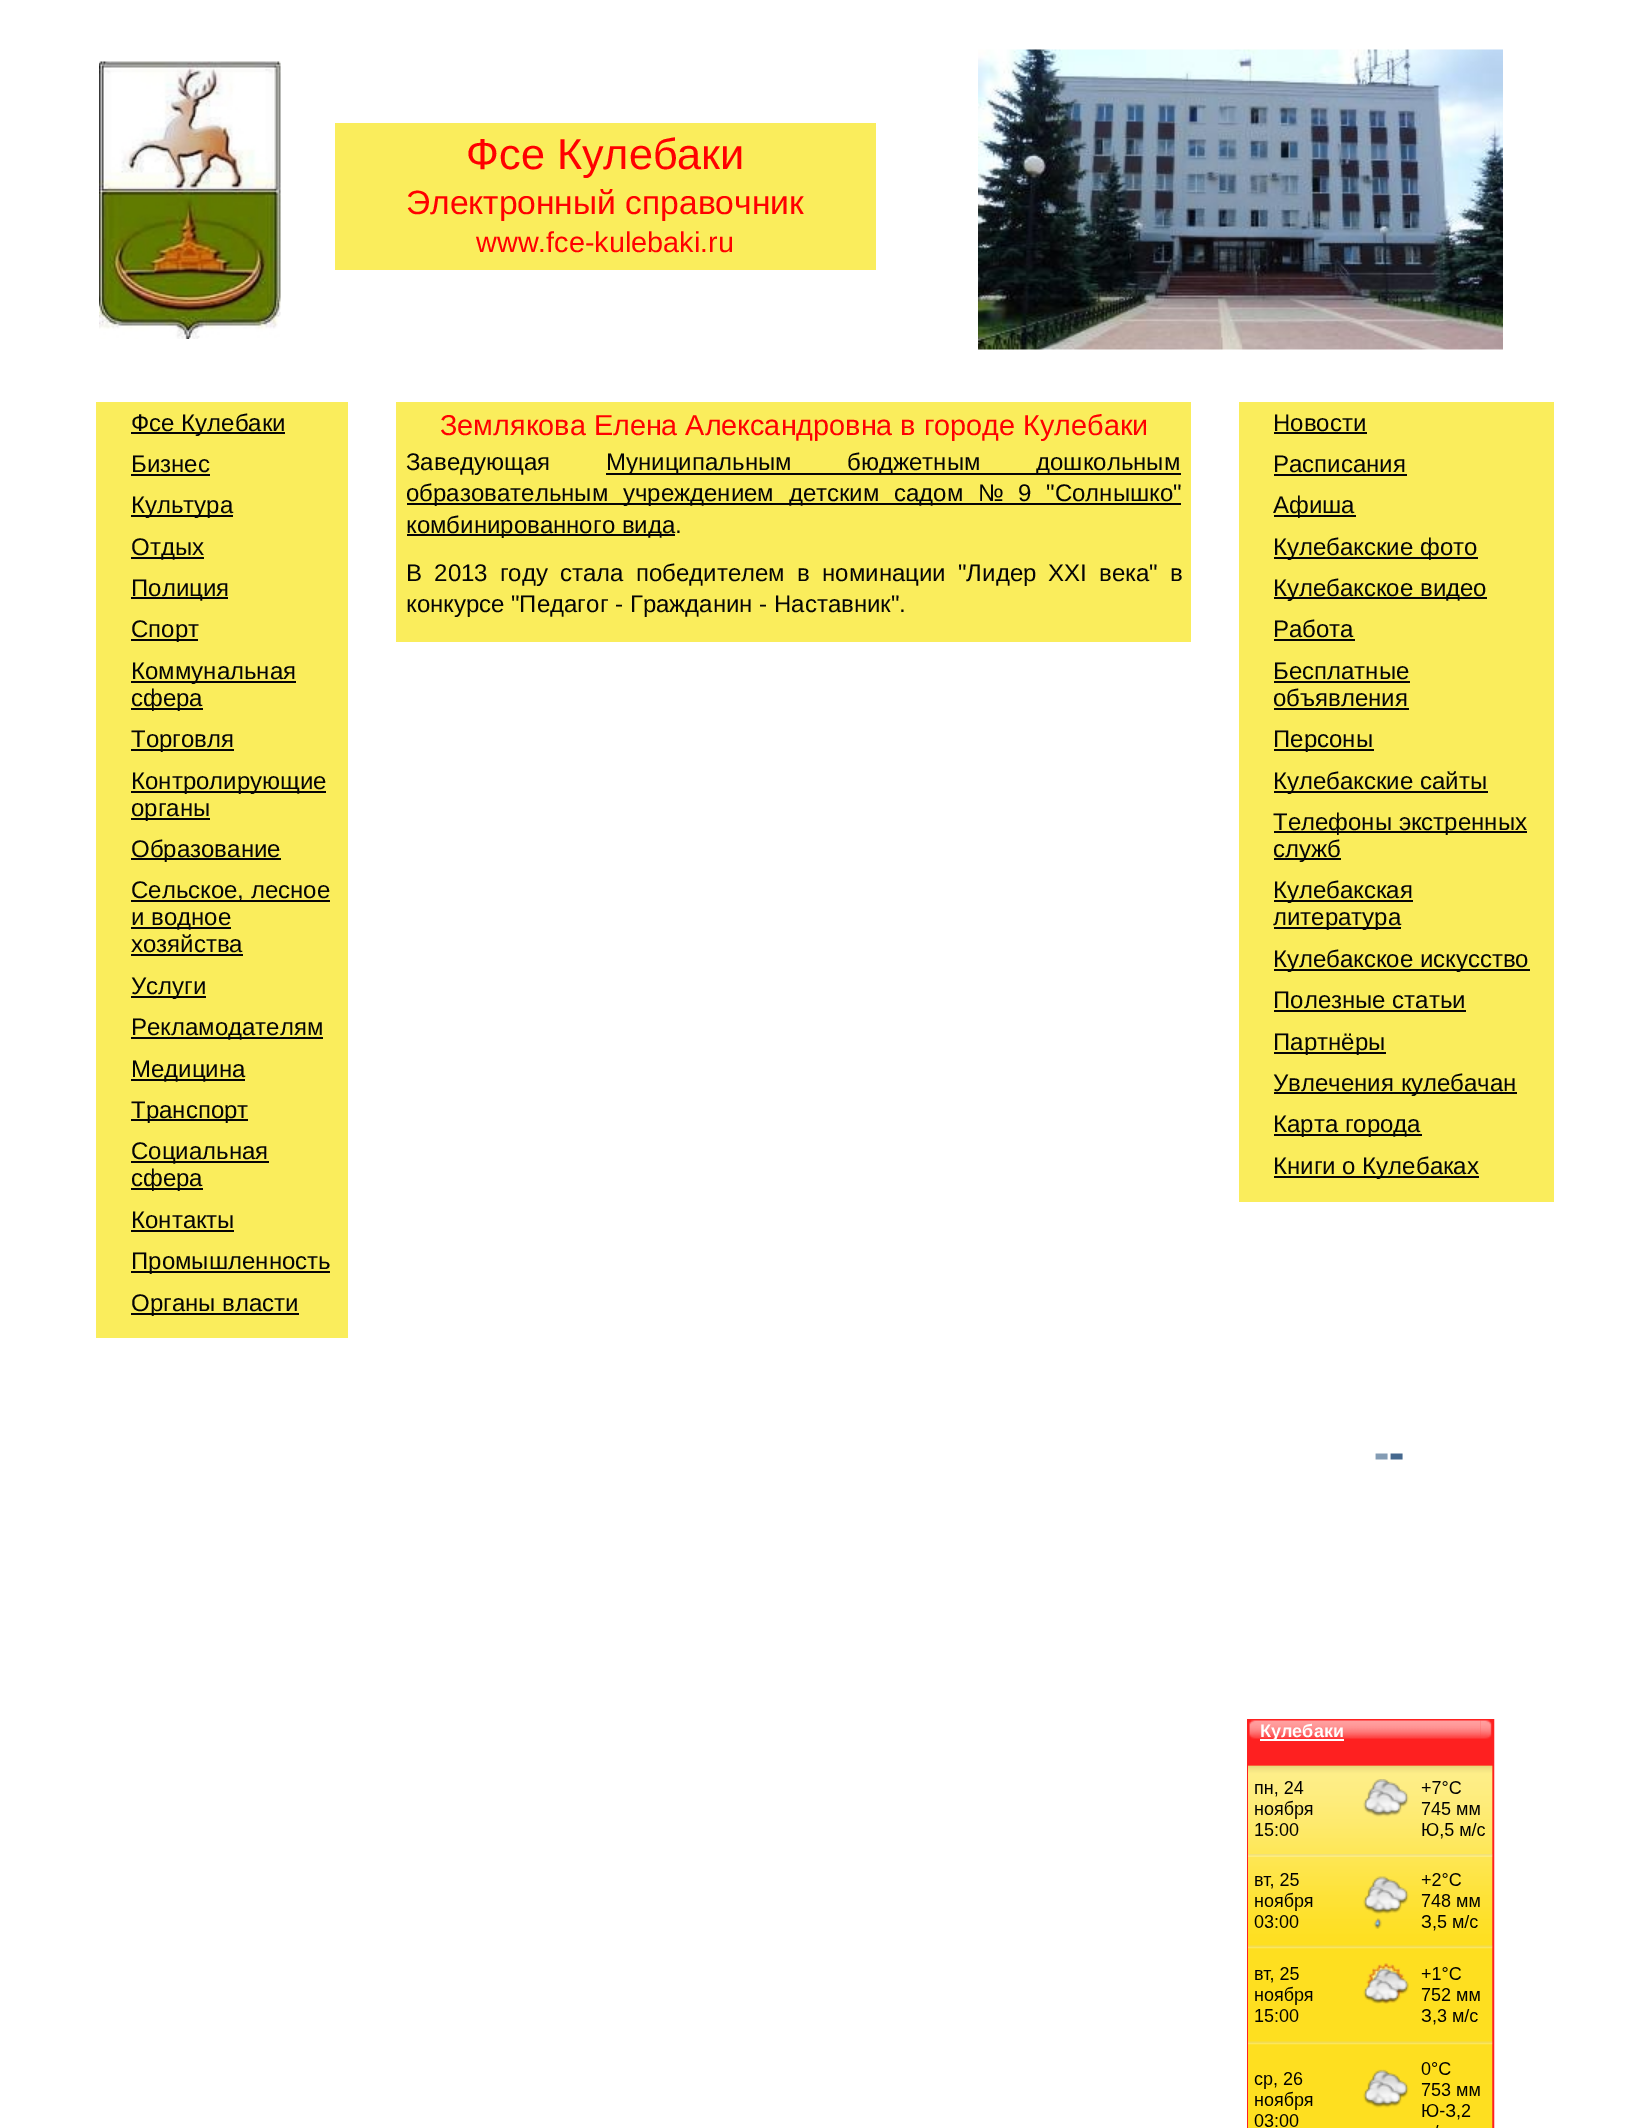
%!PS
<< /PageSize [1649 2128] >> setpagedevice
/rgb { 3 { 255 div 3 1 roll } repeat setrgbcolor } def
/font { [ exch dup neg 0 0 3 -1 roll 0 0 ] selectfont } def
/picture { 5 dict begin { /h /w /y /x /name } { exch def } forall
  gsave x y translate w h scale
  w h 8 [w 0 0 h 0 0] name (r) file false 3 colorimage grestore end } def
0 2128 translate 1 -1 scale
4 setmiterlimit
255 255 255 rgb
0 0 1649 2128 rectfill
(img/1.rgb) 99 61 182 278 picture
250 237 92 rgb
335 123 541 147 rectfill
(img/2.rgb) 978 49 525 301 picture
[
  [96 402 252 936 250 237 92]
  [131 432 154 2 5 5 5]
  [131 474 79 2 5 5 5]
  [131 515 102 2 5 5 5]
  [131 557 73 2 5 5 5]
  [131 597 97 2 5 5 5]
  [131 639 67 2 5 5 5]
  [131 681 165 2 5 5 5]
  [131 708 72 2 5 5 5]
  [131 749 103 2 5 5 5]
  [131 791 195 2 5 5 5]
  [131 818 79 2 5 5 5]
  [131 858 150 2 5 5 5]
  [131 900 199 2 5 5 5]
  [131 927 100 2 5 5 5]
  [131 954 112 2 5 5 5]
  [131 996 75 2 5 5 5]
  [131 1037 192 2 5 5 5]
  [131 1079 114 2 5 5 5]
  [131 1119 117 2 5 5 5]
  [131 1161 138 2 5 5 5]
  [131 1188 72 2 5 5 5]
  [131 1230 103 2 5 5 5]
  [131 1271 199 2 5 5 5]
  [131 1313 168 2 5 5 5]
  [396 402 795 240 250 237 92]
  [606 473 575 2 5 5 5]
  [407 503 774 2 5 5 5]
  [407 534 268 2 5 5 5]
  [1239 402 315 800 250 237 92]
  [1274 432 93 2 5 5 5]
  [1274 474 133 2 5 5 5]
  [1274 515 82 2 5 5 5]
  [1274 557 204 2 5 5 5]
  [1274 597 213 2 5 5 5]
  [1274 639 81 2 5 5 5]
  [1274 681 136 2 5 5 5]
  [1274 708 135 2 5 5 5]
  [1274 749 100 2 5 5 5]
  [1274 791 214 2 5 5 5]
  [1274 831 253 2 5 5 5]
  [1274 858 67 2 5 5 5]
  [1274 900 139 2 5 5 5]
  [1274 927 127 2 5 5 5]
  [1274 969 256 2 5 5 5]
  [1274 1010 192 2 5 5 5]
  [1274 1052 112 2 5 5 5]
  [1274 1092 243 2 5 5 5]
  [1274 1134 148 2 5 5 5]
  [1274 1176 205 2 5 5 5]
] { aload pop rgb rectfill } forall
(img/3.rgb) 1375 1453 28 7 picture
254 32 32 rgb
2 setlinewidth
1248 1720 245 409 rectstroke
1249 1721 243 45 rectfill
(img/4.rgb) 1249 1720 11 19 picture
(img/5.rgb) 1260 1720 221 19 picture
255 255 255 rgb
1260 1739 84 2 rectfill
(img/6.rgb) 1480 1720 12 19 picture
(img/7.rgb) 1248 1765 245 363 picture
/LiberationSans-Regular 43.25 font
255 0 0 rgb
466 169 moveto (Фсе Кулебаки) show
/LiberationSans-Regular 33.6 font
406 214 moveto (Электронный справочник) show
/LiberationSans-Regular 28.8 font
476 252 moveto (www.fce-kulebaki.ru) show
/LiberationSans-Regular 24 font
5 5 5 rgb
[
  [(Фсе Кулебаки) 131 431]
  [(Бизнес) 131 472]
  [(Культура) 131 513]
  [(Отдых) 131 555]
  [(Полиция) 131 596]
  [(Спорт) 131 637]
  [(Коммунальная) 131 679]
  [(сфера) 131 706]
  [(Торговля) 131 747]
  [(Контролирующие) 131 789]
  [(органы) 131 816]
  [(Образование) 131 857]
  [(Сельское, лесное) 131 898]
  [(и водное) 131 925]
  [(хозяйства) 131 952]
  [(Услуги) 131 994]
  [(Рекламодателям) 131 1035]
  [(Медицина) 131 1077]
  [(Транспорт) 131 1118]
  [(Социальная) 131 1159]
  [(сфера) 131 1186]
  [(Контакты) 131 1228]
  [(Промышленность) 131 1269]
  [(Органы власти) 131 1311]
] { aload pop moveto show } forall
/LiberationSans-Regular 28.8 font
255 0 0 rgb
440 435 moveto (Землякова Елена Александровна в городе Кулебаки) show
/LiberationSans-Regular 24 font
5 5 5 rgb
406 470 moveto (Заведующая) show
606 470 moveto 49 0 32 (Муниципальным бюджетным дошкольным) widthshow
406 501 moveto 8 0 32 (образовательным учреждением детским садом № 9 "Солнышко") widthshow
406 533 moveto (комбинированного вида.) show
406 581 moveto 5.5 0 32 (В 2013 году стала победителем в номинации "Лидер XXI века" в) widthshow
[
  [(конкурсе "Педагог - Гражданин - Наставник".) 406 612]
  [(Новости) 1273 431]
  [(Расписания) 1273 472]
  [(Афиша) 1273 513]
  [(Кулебакские фото) 1273 555]
  [(Кулебакское видео) 1273 596]
  [(Работа) 1273 637]
  [(Бесплатные) 1273 679]
  [(объявления) 1273 706]
  [(Персоны) 1273 747]
  [(Кулебакские сайты) 1273 789]
  [(Телефоны экстренных) 1273 830]
  [(служб) 1273 857]
  [(Кулебакская) 1273 898]
  [(литература) 1273 925]
  [(Кулебакское искусство) 1273 967]
  [(Полезные статьи) 1273 1008]
  [(Партнёры) 1273 1050]
  [(Увлечения кулебачан) 1273 1091]
  [(Карта города) 1273 1132]
  [(Книги о Кулебаках) 1273 1174]
] { aload pop moveto show } forall
/LiberationSans-Bold 18 font
255 255 255 rgb
1260 1737 moveto (Кулебаки) show
showpage
